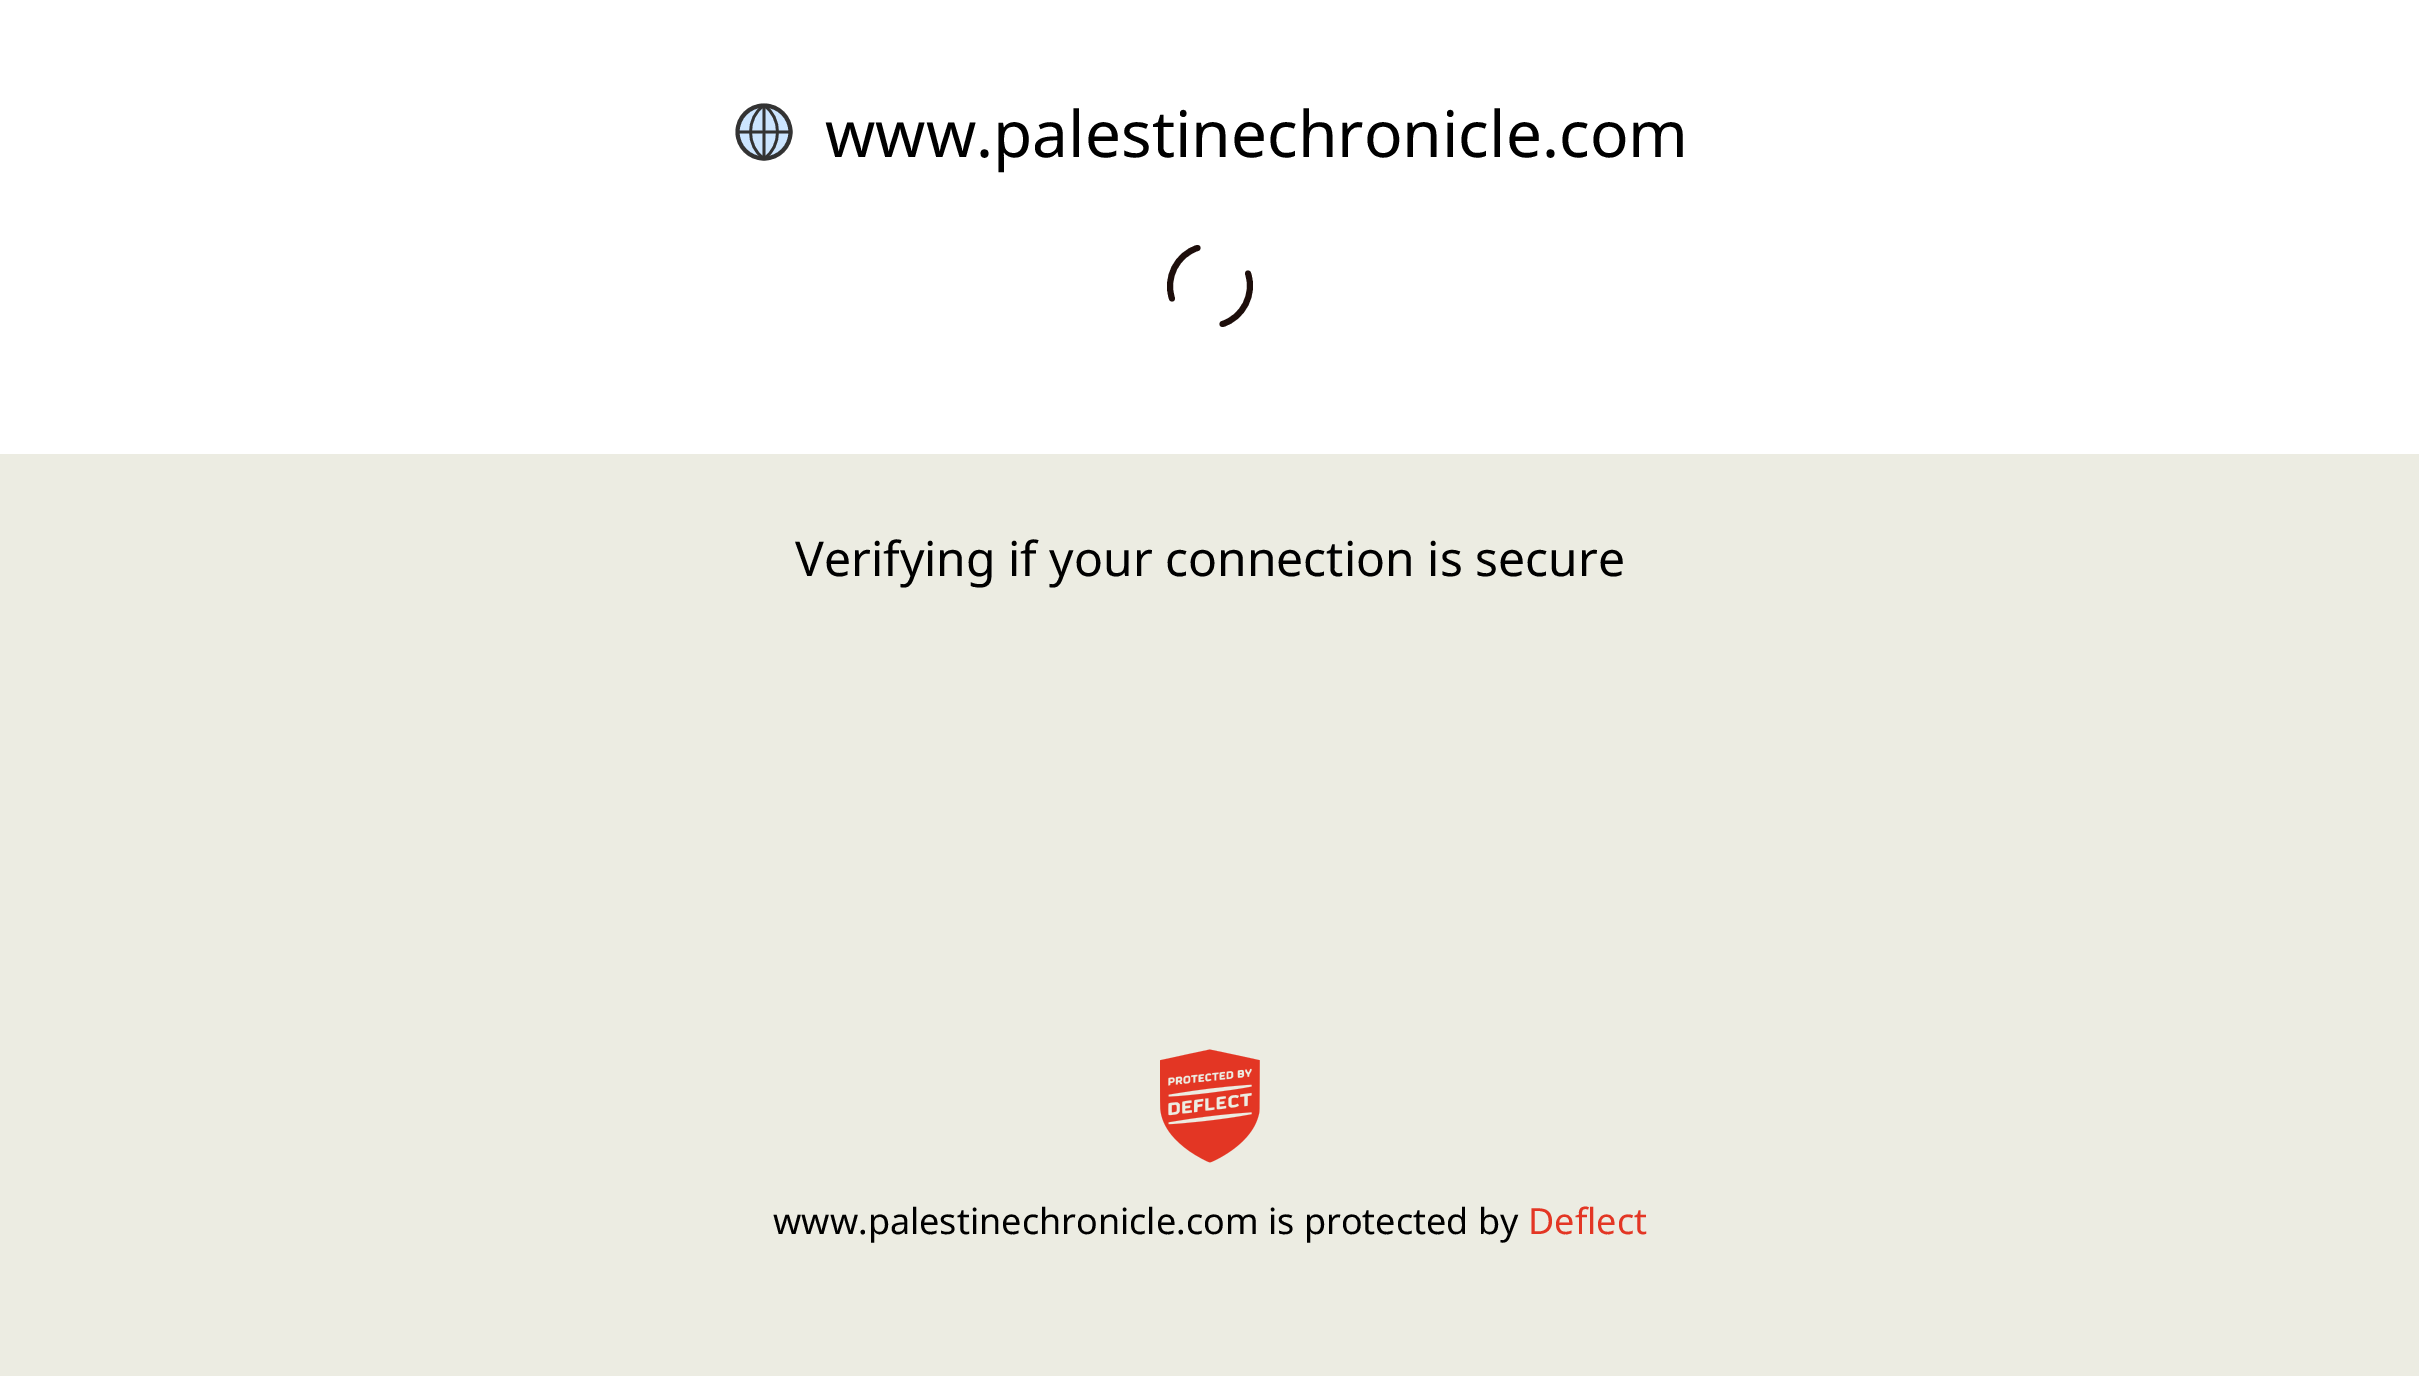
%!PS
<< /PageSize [2419 1376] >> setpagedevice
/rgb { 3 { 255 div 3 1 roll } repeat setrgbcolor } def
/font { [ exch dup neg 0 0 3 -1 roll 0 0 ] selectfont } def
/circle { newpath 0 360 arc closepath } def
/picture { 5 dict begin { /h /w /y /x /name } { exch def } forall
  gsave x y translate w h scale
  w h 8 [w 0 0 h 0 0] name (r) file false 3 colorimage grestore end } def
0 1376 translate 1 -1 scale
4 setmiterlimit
255 255 255 rgb
0 0 2419 1376 rectfill
204 229 255 rgb
764 132 26.5 circle gsave fill grestore
51 51 51 rgb
4 setlinewidth
stroke
2.7 setlinewidth
764 105.5 moveto 782 117 782 147 764 158.5 curveto 746 147 746 117 764 105.5 curveto closepath stroke
1 setlinecap
737.5 132 moveto 790.5 132 lineto 764 105.5 moveto 764 158.5 lineto stroke
29 14 11 rgb
6 setlinewidth
1248 273.5 moveto 1255 294.5 1243 317.5 1222.5 324 curveto 1172 298.5 moveto 1165 277.5 1177 254.5 1197.5 248 curveto stroke
236 236 226 rgb
0 454 2419 922 rectfill
(img/1.rgb) 1160 1049 100 114 picture
/NotoSans-Regular 64 font
0 0 0 rgb
825 157 moveto (www.palestinechronicle.com) show
/NotoSans-Regular 48 font
795 576 moveto (Verifying if your connection is secure) show
/NotoSans-Regular 36 font
773 1234 moveto (www.palestinechronicle.com is protected by) show
227 54 36 rgb
1528 1234 moveto (Deflect) show
showpage
